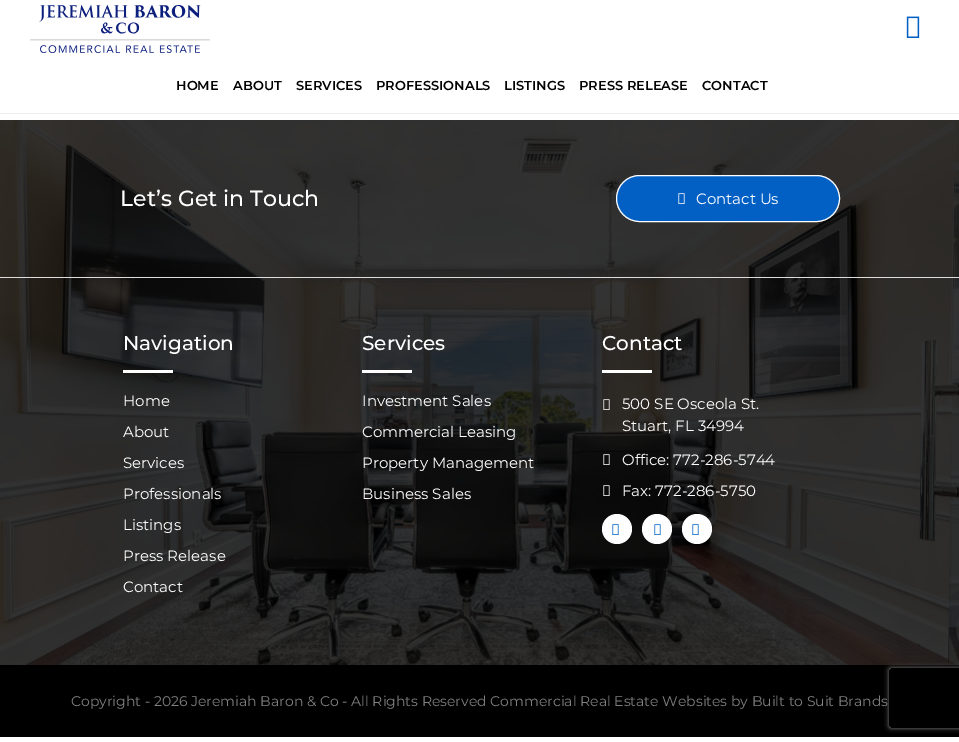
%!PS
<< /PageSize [959 742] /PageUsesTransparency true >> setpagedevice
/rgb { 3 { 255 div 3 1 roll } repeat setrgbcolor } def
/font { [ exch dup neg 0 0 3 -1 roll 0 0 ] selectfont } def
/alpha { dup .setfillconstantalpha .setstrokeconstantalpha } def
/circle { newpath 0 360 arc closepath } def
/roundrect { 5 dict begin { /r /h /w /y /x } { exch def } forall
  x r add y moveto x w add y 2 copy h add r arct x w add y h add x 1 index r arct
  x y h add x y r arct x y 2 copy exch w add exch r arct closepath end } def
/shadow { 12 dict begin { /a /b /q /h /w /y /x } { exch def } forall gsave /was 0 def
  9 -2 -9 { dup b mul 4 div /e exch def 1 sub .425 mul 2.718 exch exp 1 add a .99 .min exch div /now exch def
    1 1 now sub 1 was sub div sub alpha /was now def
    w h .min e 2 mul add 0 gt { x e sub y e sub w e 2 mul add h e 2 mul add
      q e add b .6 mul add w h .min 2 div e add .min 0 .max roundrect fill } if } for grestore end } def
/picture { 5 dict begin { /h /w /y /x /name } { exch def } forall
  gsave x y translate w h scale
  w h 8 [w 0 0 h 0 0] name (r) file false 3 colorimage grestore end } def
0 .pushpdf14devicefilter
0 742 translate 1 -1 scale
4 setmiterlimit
255 255 255 rgb
0 0 959 742 rectfill
238 238 238 rgb
0 113 959 1 rectfill
(img/1.rgb) 906 16 14 22 picture
(img/2.rgb) 30 5 180 48 picture
(img/3.rgb) 0 120 959 545 picture
2 96 196 rgb
616.5 175.5 223 46 23 roundrect gsave fill grestore
255 255 255 rgb
stroke
(img/4.rgb) 678 193 7 11 picture
[
  [0 277 959 1 221 221 221]
  [123 370 50 3 255 255 255]
  [362 370 50 3 255 255 255]
  [602 370 50 3 255 255 255]
] { aload pop rgb rectfill } forall
(img/5.rgb) 603 399 7 11 picture
(img/6.rgb) 603 454 7 11 picture
(img/7.rgb) 603 485 7 11 picture
617 529 15 circle fill
(img/8.rgb) 612 524 7 11 picture
657 529 15 circle fill
(img/8.rgb) 654 524 7 11 picture
697 529 15 circle fill
(img/8.rgb) 692 524 7 11 picture
0 0 0 rgb
0 665 959 72 rectfill
gsave
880 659 moveto 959 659 lineto 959 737 lineto 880 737 lineto closepath 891 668 moveto 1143 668 lineto 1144 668 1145 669 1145 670 curveto 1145 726 lineto 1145 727 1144 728 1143 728 curveto 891 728 lineto 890 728 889 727 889 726 curveto 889 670 lineto 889 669 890 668 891 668 curveto closepath eoclip newpath
128 128 128 rgb
889 668 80 60 2 2.5 1 shadow
grestore
/Montserrat-SemiBold 13 font
[
  [(HOME) 176 90]
  [(ABOUT) 233 90]
  [(SERVICES) 296 90]
  [(PROFESSIONALS) 376 90]
  [(LISTINGS) 504 90]
  [(PRESS RELEASE) 579 90]
  [(CONTACT) 702 90]
] { aload pop moveto show } forall
/Montserrat-Medium 22 font
255 255 255 rgb
120 206 moveto (Let’s Get in Touch) show
/Montserrat-Regular 15 font
696 204 moveto (Contact Us) show
/Montserrat-Medium 20 font
123 350 moveto (Navigation) show
/Montserrat-Regular 15 font
[
  [(Home) 123 406]
  [(About) 123 437]
  [(Services) 123 468]
  [(Professionals) 123 499]
  [(Listings) 123 530]
  [(Press Release) 123 561]
  [(Contact) 123 592]
] { aload pop moveto show } forall
/Montserrat-Medium 20 font
362 350 moveto (Services) show
/Montserrat-Regular 15 font
[
  [(Investment Sales) 362 406]
  [(Commercial Leasing) 362 437]
  [(Property Management) 362 468]
  [(Business Sales) 362 499]
] { aload pop moveto show } forall
/Montserrat-Medium 20 font
602 350 moveto (Contact) show
/Montserrat-Regular 15 font
[
  [(500 SE Osceola St.) 622 409]
  [(Stuart, FL 34994) 622 431]
  [(Office: 772-286-5744) 622 465]
  [(Fax: 772-286-5750) 622 496]
] { aload pop moveto show } forall
/Montserrat-Regular 14 font
128 128 128 rgb
71 706 moveto (Copyright - 2026 Jeremiah Baron & Co - All Rights Reserved Commercial Real Estate Websites by Built to Suit Brands) show
.poppdf14devicefilter showpage
